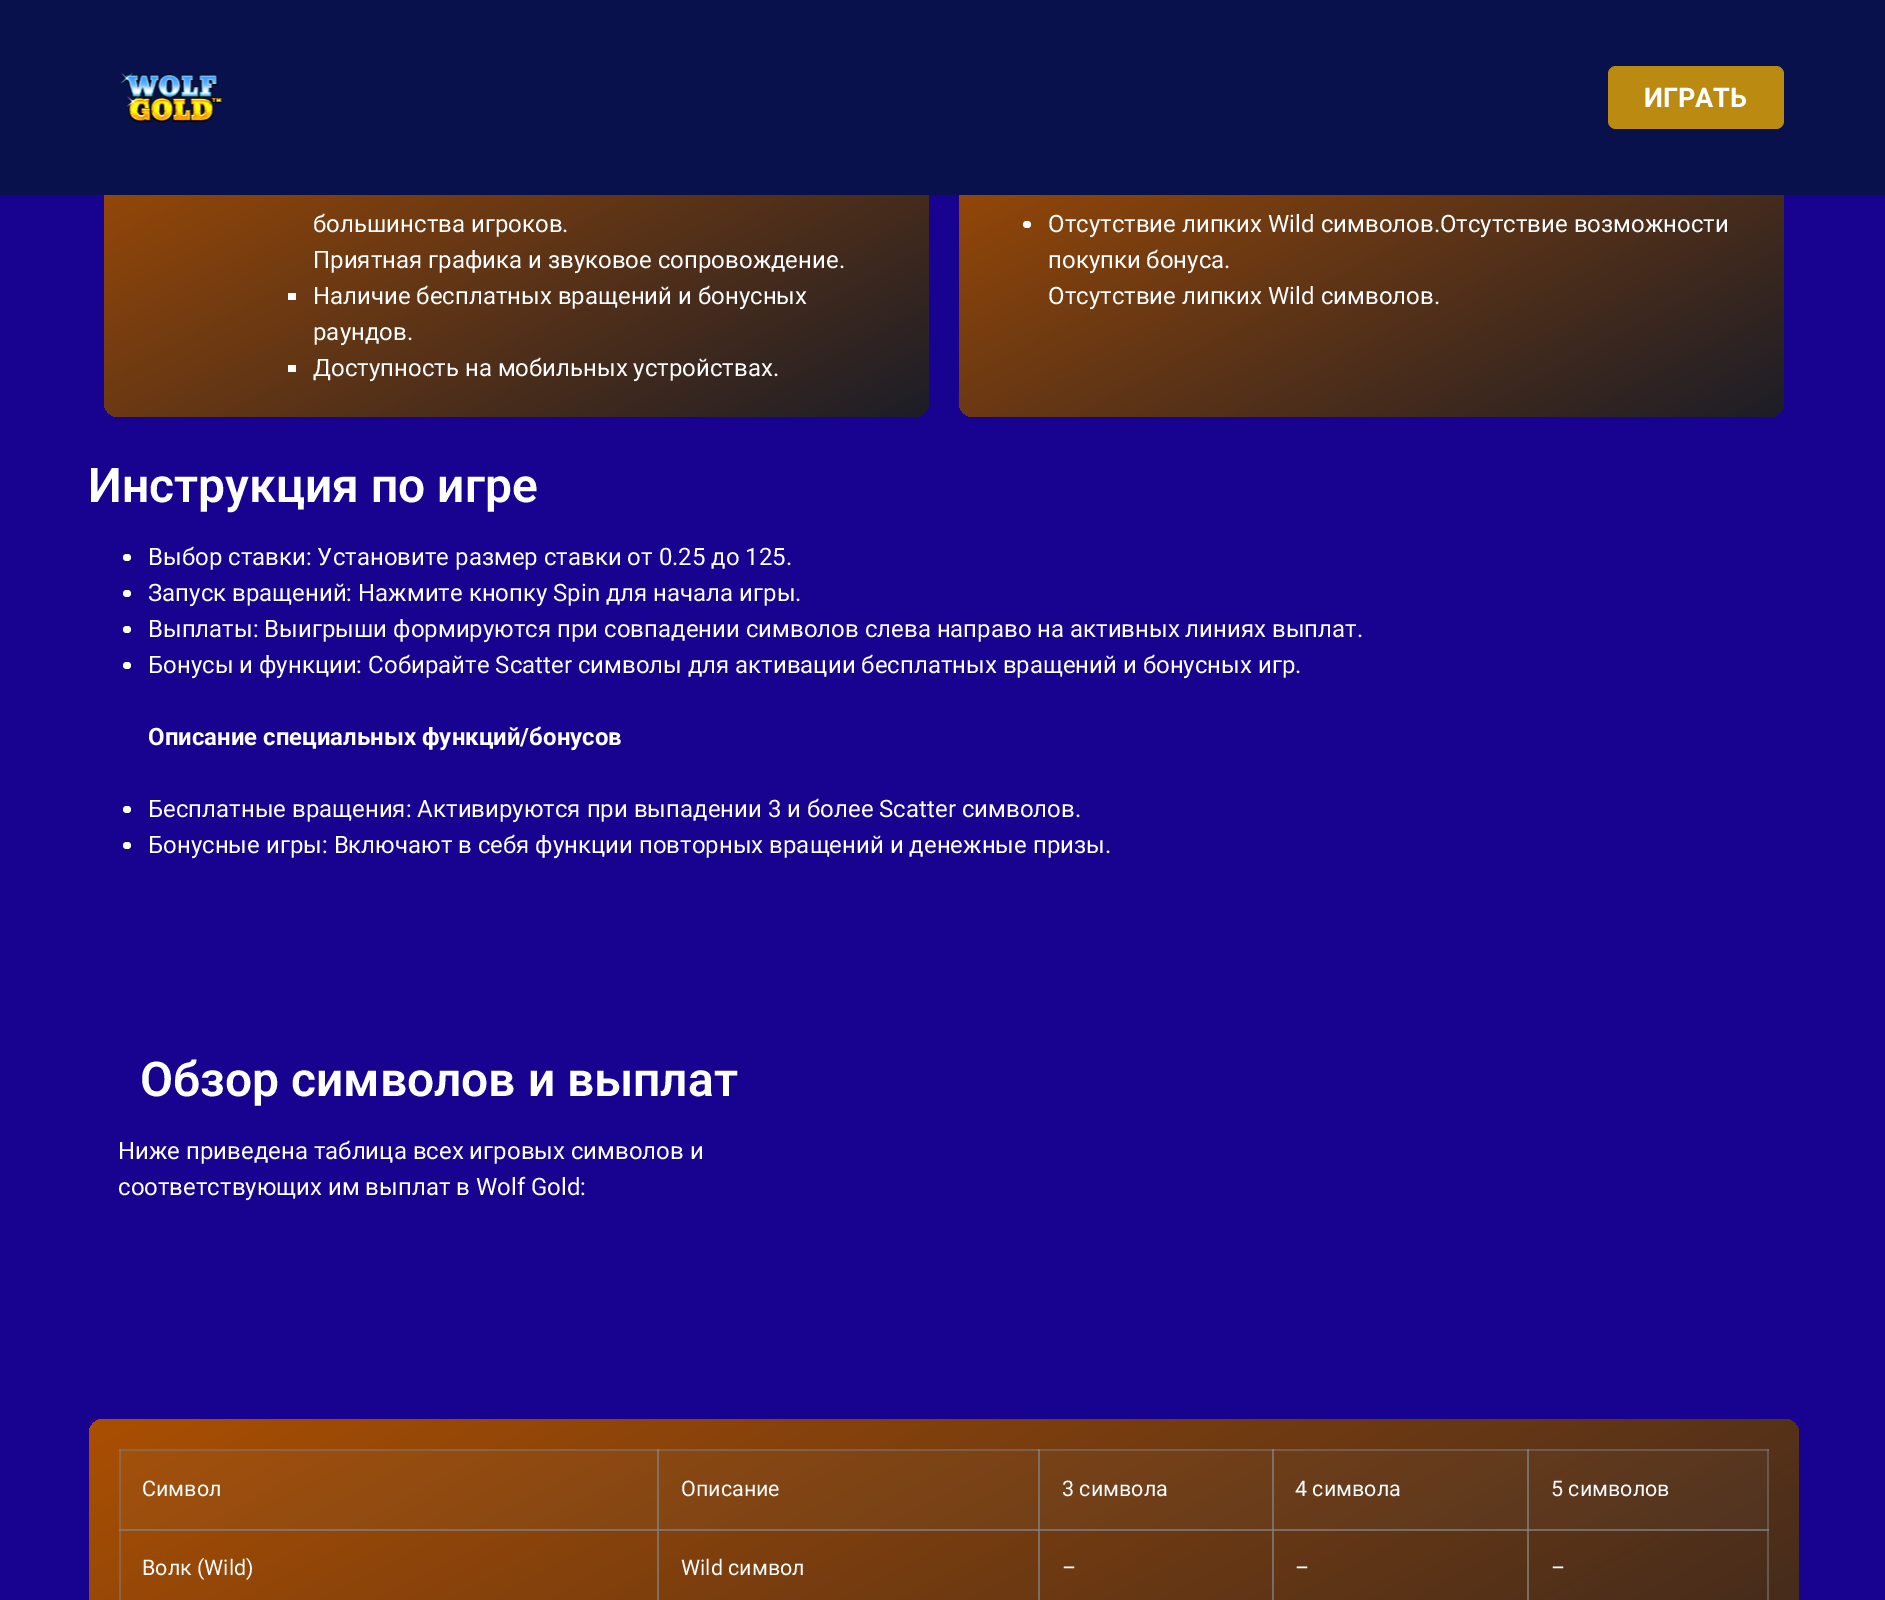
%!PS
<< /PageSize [1885 1600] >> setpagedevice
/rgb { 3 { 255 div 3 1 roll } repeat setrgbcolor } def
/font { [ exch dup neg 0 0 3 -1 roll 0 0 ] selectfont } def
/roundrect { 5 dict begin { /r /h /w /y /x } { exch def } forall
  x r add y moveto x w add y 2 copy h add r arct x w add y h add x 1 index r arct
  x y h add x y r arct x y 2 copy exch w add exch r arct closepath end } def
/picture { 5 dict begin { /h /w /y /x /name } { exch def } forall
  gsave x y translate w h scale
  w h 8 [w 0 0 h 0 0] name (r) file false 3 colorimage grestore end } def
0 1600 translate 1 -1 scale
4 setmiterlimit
23 3 144 rgb
0 0 1885 1600 rectfill
gsave 104 69 825 348 15 roundrect clip newpath
<< /ShadingType 2 /ColorSpace /DeviceRGB /Coords [353 -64 679 550] /Extend [true true] /Function << /FunctionType 2 /Domain [0 1] /C0 [0.667 0.31 0.008] /C1 [0.11 0.114 0.153] /N 1 >> >> shfill grestore
gsave 959 69 825 348 15 roundrect clip newpath
<< /ShadingType 2 /ColorSpace /DeviceRGB /Coords [1208 -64 1534 550] /Extend [true true] /Function << /FunctionType 2 /Domain [0 1] /C0 [0.667 0.31 0.008] /C1 [0.11 0.114 0.153] /N 1 >> >> shfill grestore
8 17 75 rgb
0 0 1885 195 rectfill
(img/1.rgb) 120 73 102 50 picture
187 139 17 rgb
1608 66 176 63 8 roundrect fill
255 255 255 rgb
288 293 8 7 rectfill
288 365 8 7 rectfill
1023 221 8 7 3.5 roundrect fill
123 554 8 7 3.5 roundrect fill
123 590 8 7 3.5 roundrect fill
123 626 8 7 3.5 roundrect fill
123 662 8 7 3.5 roundrect fill
123 806 8 7 3.5 roundrect fill
123 842 8 7 3.5 roundrect fill
gsave 89 1419 1710 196 15 roundrect clip newpath
<< /ShadingType 2 /ColorSpace /DeviceRGB /Coords [623 1135 1264 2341] /Extend [true true] /Function << /FunctionType 2 /Domain [0 1] /C0 [0.667 0.31 0.008] /C1 [0.11 0.114 0.153] /N 1 >> >> shfill grestore
gsave 119 1449 moveto 659 1449 lineto 659 1451 lineto 119 1451 lineto closepath clip newpath
<< /ShadingType 2 /ColorSpace /DeviceRGB /Coords [623 1135 1264 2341] /Extend [true true] /Function << /FunctionType 2 /Domain [0 1] /C0 [0.584 0.408 0.255] /C1 [0.306 0.31 0.329] /N 1 >> >> shfill grestore
gsave 119 1449 moveto 121 1449 lineto 121 1451 lineto 119 1451 lineto closepath clip newpath
<< /ShadingType 2 /ColorSpace /DeviceRGB /Coords [623 1135 1264 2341] /Extend [true true] /Function << /FunctionType 2 /Domain [0 1] /C0 [0.545 0.455 0.38] /C1 [0.404 0.408 0.416] /N 1 >> >> shfill grestore
gsave 657 1449 moveto 1040 1449 lineto 1040 1451 lineto 657 1451 lineto closepath clip newpath
<< /ShadingType 2 /ColorSpace /DeviceRGB /Coords [623 1135 1264 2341] /Extend [true true] /Function << /FunctionType 2 /Domain [0 1] /C0 [0.584 0.408 0.255] /C1 [0.306 0.31 0.329] /N 1 >> >> shfill grestore
gsave 657 1449 moveto 659 1449 lineto 659 1451 lineto 657 1451 lineto closepath clip newpath
<< /ShadingType 2 /ColorSpace /DeviceRGB /Coords [623 1135 1264 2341] /Extend [true true] /Function << /FunctionType 2 /Domain [0 1] /C0 [0.514 0.49 0.475] /C1 [0.478 0.478 0.482] /N 1 >> >> shfill grestore
gsave 1038 1449 moveto 1274 1449 lineto 1274 1451 lineto 1038 1451 lineto closepath clip newpath
<< /ShadingType 2 /ColorSpace /DeviceRGB /Coords [623 1135 1264 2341] /Extend [true true] /Function << /FunctionType 2 /Domain [0 1] /C0 [0.584 0.408 0.255] /C1 [0.306 0.31 0.329] /N 1 >> >> shfill grestore
gsave 1038 1449 moveto 1040 1449 lineto 1040 1451 lineto 1038 1451 lineto closepath clip newpath
<< /ShadingType 2 /ColorSpace /DeviceRGB /Coords [623 1135 1264 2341] /Extend [true true] /Function << /FunctionType 2 /Domain [0 1] /C0 [0.514 0.49 0.475] /C1 [0.478 0.478 0.482] /N 1 >> >> shfill grestore
gsave 1272 1449 moveto 1529 1449 lineto 1529 1451 lineto 1272 1451 lineto closepath clip newpath
<< /ShadingType 2 /ColorSpace /DeviceRGB /Coords [623 1135 1264 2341] /Extend [true true] /Function << /FunctionType 2 /Domain [0 1] /C0 [0.584 0.408 0.255] /C1 [0.306 0.31 0.329] /N 1 >> >> shfill grestore
gsave 1272 1449 moveto 1274 1449 lineto 1274 1451 lineto 1272 1451 lineto closepath clip newpath
<< /ShadingType 2 /ColorSpace /DeviceRGB /Coords [623 1135 1264 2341] /Extend [true true] /Function << /FunctionType 2 /Domain [0 1] /C0 [0.514 0.49 0.475] /C1 [0.478 0.478 0.482] /N 1 >> >> shfill grestore
gsave 1767 1449 moveto 1769 1449 lineto 1769 1530 lineto 1767 1530 lineto closepath clip newpath
<< /ShadingType 2 /ColorSpace /DeviceRGB /Coords [623 1135 1264 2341] /Extend [true true] /Function << /FunctionType 2 /Domain [0 1] /C0 [0.584 0.408 0.255] /C1 [0.306 0.31 0.329] /N 1 >> >> shfill grestore
gsave 1527 1449 moveto 1769 1449 lineto 1769 1451 lineto 1527 1451 lineto closepath clip newpath
<< /ShadingType 2 /ColorSpace /DeviceRGB /Coords [623 1135 1264 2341] /Extend [true true] /Function << /FunctionType 2 /Domain [0 1] /C0 [0.584 0.408 0.255] /C1 [0.306 0.31 0.329] /N 1 >> >> shfill grestore
gsave 1527 1449 moveto 1529 1449 lineto 1529 1451 lineto 1527 1451 lineto closepath clip newpath
<< /ShadingType 2 /ColorSpace /DeviceRGB /Coords [623 1135 1264 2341] /Extend [true true] /Function << /FunctionType 2 /Domain [0 1] /C0 [0.514 0.49 0.475] /C1 [0.478 0.478 0.482] /N 1 >> >> shfill grestore
gsave 1767 1449 moveto 1769 1449 lineto 1769 1451 lineto 1767 1451 lineto closepath clip newpath
<< /ShadingType 2 /ColorSpace /DeviceRGB /Coords [623 1135 1264 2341] /Extend [true true] /Function << /FunctionType 2 /Domain [0 1] /C0 [0.545 0.455 0.38] /C1 [0.404 0.408 0.416] /N 1 >> >> shfill grestore
gsave 119 1529 moveto 121 1529 lineto 121 1600 lineto 119 1600 lineto closepath clip newpath
<< /ShadingType 2 /ColorSpace /DeviceRGB /Coords [623 1135 1264 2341] /Extend [true true] /Function << /FunctionType 2 /Domain [0 1] /C0 [0.584 0.408 0.255] /C1 [0.306 0.31 0.329] /N 1 >> >> shfill grestore
gsave 119 1530 moveto 659 1530 lineto 659 1531 lineto 119 1531 lineto closepath clip newpath
<< /ShadingType 2 /ColorSpace /DeviceRGB /Coords [623 1135 1264 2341] /Extend [true true] /Function << /FunctionType 2 /Domain [0 1] /C0 [0.545 0.455 0.38] /C1 [0.404 0.408 0.416] /N 1 >> >> shfill grestore
gsave 119 1530 moveto 121 1530 lineto 121 1531 lineto 119 1531 lineto closepath clip newpath
<< /ShadingType 2 /ColorSpace /DeviceRGB /Coords [623 1135 1264 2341] /Extend [true true] /Function << /FunctionType 2 /Domain [0 1] /C0 [0.525 0.478 0.443] /C1 [0.455 0.455 0.459] /N 1 >> >> shfill grestore
gsave 657 1529 moveto 659 1529 lineto 659 1600 lineto 657 1600 lineto closepath clip newpath
<< /ShadingType 2 /ColorSpace /DeviceRGB /Coords [623 1135 1264 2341] /Extend [true true] /Function << /FunctionType 2 /Domain [0 1] /C0 [0.545 0.455 0.38] /C1 [0.404 0.408 0.416] /N 1 >> >> shfill grestore
gsave 657 1530 moveto 1040 1530 lineto 1040 1531 lineto 657 1531 lineto closepath clip newpath
<< /ShadingType 2 /ColorSpace /DeviceRGB /Coords [623 1135 1264 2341] /Extend [true true] /Function << /FunctionType 2 /Domain [0 1] /C0 [0.545 0.455 0.38] /C1 [0.404 0.408 0.416] /N 1 >> >> shfill grestore
gsave 657 1530 moveto 659 1530 lineto 659 1531 lineto 657 1531 lineto closepath clip newpath
<< /ShadingType 2 /ColorSpace /DeviceRGB /Coords [623 1135 1264 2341] /Extend [true true] /Function << /FunctionType 2 /Domain [0 1] /C0 [0.506 0.502 0.498] /C1 [0.498 0.498 0.498] /N 1 >> >> shfill grestore
gsave 1038 1529 moveto 1040 1529 lineto 1040 1600 lineto 1038 1600 lineto closepath clip newpath
<< /ShadingType 2 /ColorSpace /DeviceRGB /Coords [623 1135 1264 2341] /Extend [true true] /Function << /FunctionType 2 /Domain [0 1] /C0 [0.545 0.455 0.38] /C1 [0.404 0.408 0.416] /N 1 >> >> shfill grestore
gsave 1038 1530 moveto 1274 1530 lineto 1274 1531 lineto 1038 1531 lineto closepath clip newpath
<< /ShadingType 2 /ColorSpace /DeviceRGB /Coords [623 1135 1264 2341] /Extend [true true] /Function << /FunctionType 2 /Domain [0 1] /C0 [0.545 0.455 0.38] /C1 [0.404 0.408 0.416] /N 1 >> >> shfill grestore
gsave 1038 1530 moveto 1040 1530 lineto 1040 1531 lineto 1038 1531 lineto closepath clip newpath
<< /ShadingType 2 /ColorSpace /DeviceRGB /Coords [623 1135 1264 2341] /Extend [true true] /Function << /FunctionType 2 /Domain [0 1] /C0 [0.506 0.502 0.498] /C1 [0.498 0.498 0.498] /N 1 >> >> shfill grestore
gsave 1272 1529 moveto 1274 1529 lineto 1274 1600 lineto 1272 1600 lineto closepath clip newpath
<< /ShadingType 2 /ColorSpace /DeviceRGB /Coords [623 1135 1264 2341] /Extend [true true] /Function << /FunctionType 2 /Domain [0 1] /C0 [0.545 0.455 0.38] /C1 [0.404 0.408 0.416] /N 1 >> >> shfill grestore
gsave 1272 1530 moveto 1529 1530 lineto 1529 1531 lineto 1272 1531 lineto closepath clip newpath
<< /ShadingType 2 /ColorSpace /DeviceRGB /Coords [623 1135 1264 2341] /Extend [true true] /Function << /FunctionType 2 /Domain [0 1] /C0 [0.545 0.455 0.38] /C1 [0.404 0.408 0.416] /N 1 >> >> shfill grestore
gsave 1272 1530 moveto 1274 1530 lineto 1274 1531 lineto 1272 1531 lineto closepath clip newpath
<< /ShadingType 2 /ColorSpace /DeviceRGB /Coords [623 1135 1264 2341] /Extend [true true] /Function << /FunctionType 2 /Domain [0 1] /C0 [0.506 0.502 0.498] /C1 [0.498 0.498 0.498] /N 1 >> >> shfill grestore
gsave 1527 1529 moveto 1529 1529 lineto 1529 1600 lineto 1527 1600 lineto closepath clip newpath
<< /ShadingType 2 /ColorSpace /DeviceRGB /Coords [623 1135 1264 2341] /Extend [true true] /Function << /FunctionType 2 /Domain [0 1] /C0 [0.545 0.455 0.38] /C1 [0.404 0.408 0.416] /N 1 >> >> shfill grestore
gsave 1767 1529 moveto 1769 1529 lineto 1769 1600 lineto 1767 1600 lineto closepath clip newpath
<< /ShadingType 2 /ColorSpace /DeviceRGB /Coords [623 1135 1264 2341] /Extend [true true] /Function << /FunctionType 2 /Domain [0 1] /C0 [0.584 0.408 0.255] /C1 [0.306 0.31 0.329] /N 1 >> >> shfill grestore
gsave 1527 1530 moveto 1769 1530 lineto 1769 1531 lineto 1527 1531 lineto closepath clip newpath
<< /ShadingType 2 /ColorSpace /DeviceRGB /Coords [623 1135 1264 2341] /Extend [true true] /Function << /FunctionType 2 /Domain [0 1] /C0 [0.545 0.455 0.38] /C1 [0.404 0.408 0.416] /N 1 >> >> shfill grestore
gsave 1527 1530 moveto 1529 1530 lineto 1529 1531 lineto 1527 1531 lineto closepath clip newpath
<< /ShadingType 2 /ColorSpace /DeviceRGB /Coords [623 1135 1264 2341] /Extend [true true] /Function << /FunctionType 2 /Domain [0 1] /C0 [0.506 0.502 0.498] /C1 [0.498 0.498 0.498] /N 1 >> >> shfill grestore
gsave 1767 1530 moveto 1769 1530 lineto 1769 1531 lineto 1767 1531 lineto closepath clip newpath
<< /ShadingType 2 /ColorSpace /DeviceRGB /Coords [623 1135 1264 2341] /Extend [true true] /Function << /FunctionType 2 /Domain [0 1] /C0 [0.525 0.478 0.443] /C1 [0.455 0.455 0.459] /N 1 >> >> shfill grestore
gsave 1767 1529 moveto 1769 1529 lineto 1769 1530 lineto 1767 1530 lineto closepath clip newpath
<< /ShadingType 2 /ColorSpace /DeviceRGB /Coords [623 1135 1264 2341] /Extend [true true] /Function << /FunctionType 2 /Domain [0 1] /C0 [0.514 0.49 0.475] /C1 [0.478 0.478 0.482] /N 1 >> >> shfill grestore
gsave 1529 1451 moveto 1767 1451 lineto 1767 1529 lineto 1529 1529 lineto closepath clip newpath
<< /ShadingType 2 /ColorSpace /DeviceRGB /Coords [623 1135 1264 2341] /Extend [true true] /Function << /FunctionType 2 /Domain [0 1] /C0 [0.655 0.322 0.043] /C1 [0.137 0.141 0.176] /N 1 >> >> shfill grestore
gsave 1527 1451 moveto 1529 1451 lineto 1529 1530 lineto 1527 1530 lineto closepath clip newpath
<< /ShadingType 2 /ColorSpace /DeviceRGB /Coords [623 1135 1264 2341] /Extend [true true] /Function << /FunctionType 2 /Domain [0 1] /C0 [0.541 0.459 0.388] /C1 [0.412 0.412 0.424] /N 1 >> >> shfill grestore
gsave 1527 1529 moveto 1767 1529 lineto 1767 1530 lineto 1527 1530 lineto closepath clip newpath
<< /ShadingType 2 /ColorSpace /DeviceRGB /Coords [623 1135 1264 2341] /Extend [true true] /Function << /FunctionType 2 /Domain [0 1] /C0 [0.541 0.459 0.388] /C1 [0.412 0.412 0.424] /N 1 >> >> shfill grestore
gsave 1527 1529 moveto 1529 1529 lineto 1529 1530 lineto 1527 1530 lineto closepath clip newpath
<< /ShadingType 2 /ColorSpace /DeviceRGB /Coords [623 1135 1264 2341] /Extend [true true] /Function << /FunctionType 2 /Domain [0 1] /C0 [0.506 0.502 0.502] /C1 [0.502 0.502 0.502] /N 1 >> >> shfill grestore
gsave 1274 1451 moveto 1527 1451 lineto 1527 1529 lineto 1274 1529 lineto closepath clip newpath
<< /ShadingType 2 /ColorSpace /DeviceRGB /Coords [623 1135 1264 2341] /Extend [true true] /Function << /FunctionType 2 /Domain [0 1] /C0 [0.655 0.322 0.043] /C1 [0.137 0.141 0.176] /N 1 >> >> shfill grestore
gsave 1272 1451 moveto 1274 1451 lineto 1274 1530 lineto 1272 1530 lineto closepath clip newpath
<< /ShadingType 2 /ColorSpace /DeviceRGB /Coords [623 1135 1264 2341] /Extend [true true] /Function << /FunctionType 2 /Domain [0 1] /C0 [0.541 0.459 0.388] /C1 [0.412 0.412 0.424] /N 1 >> >> shfill grestore
gsave 1272 1529 moveto 1527 1529 lineto 1527 1530 lineto 1272 1530 lineto closepath clip newpath
<< /ShadingType 2 /ColorSpace /DeviceRGB /Coords [623 1135 1264 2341] /Extend [true true] /Function << /FunctionType 2 /Domain [0 1] /C0 [0.541 0.459 0.388] /C1 [0.412 0.412 0.424] /N 1 >> >> shfill grestore
gsave 1272 1529 moveto 1274 1529 lineto 1274 1530 lineto 1272 1530 lineto closepath clip newpath
<< /ShadingType 2 /ColorSpace /DeviceRGB /Coords [623 1135 1264 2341] /Extend [true true] /Function << /FunctionType 2 /Domain [0 1] /C0 [0.506 0.502 0.502] /C1 [0.502 0.502 0.502] /N 1 >> >> shfill grestore
gsave 1040 1451 moveto 1272 1451 lineto 1272 1529 lineto 1040 1529 lineto closepath clip newpath
<< /ShadingType 2 /ColorSpace /DeviceRGB /Coords [623 1135 1264 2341] /Extend [true true] /Function << /FunctionType 2 /Domain [0 1] /C0 [0.655 0.322 0.043] /C1 [0.137 0.141 0.176] /N 1 >> >> shfill grestore
gsave 1040 1529 moveto 1272 1529 lineto 1272 1530 lineto 1040 1530 lineto closepath clip newpath
<< /ShadingType 2 /ColorSpace /DeviceRGB /Coords [623 1135 1264 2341] /Extend [true true] /Function << /FunctionType 2 /Domain [0 1] /C0 [0.541 0.459 0.388] /C1 [0.412 0.412 0.424] /N 1 >> >> shfill grestore
gsave 659 1451 moveto 1038 1451 lineto 1038 1529 lineto 659 1529 lineto closepath clip newpath
<< /ShadingType 2 /ColorSpace /DeviceRGB /Coords [623 1135 1264 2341] /Extend [true true] /Function << /FunctionType 2 /Domain [0 1] /C0 [0.655 0.322 0.043] /C1 [0.137 0.141 0.176] /N 1 >> >> shfill grestore
gsave 1038 1451 moveto 1040 1451 lineto 1040 1530 lineto 1038 1530 lineto closepath clip newpath
<< /ShadingType 2 /ColorSpace /DeviceRGB /Coords [623 1135 1264 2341] /Extend [true true] /Function << /FunctionType 2 /Domain [0 1] /C0 [0.541 0.459 0.388] /C1 [0.412 0.412 0.424] /N 1 >> >> shfill grestore
gsave 659 1529 moveto 1040 1529 lineto 1040 1530 lineto 659 1530 lineto closepath clip newpath
<< /ShadingType 2 /ColorSpace /DeviceRGB /Coords [623 1135 1264 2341] /Extend [true true] /Function << /FunctionType 2 /Domain [0 1] /C0 [0.541 0.459 0.388] /C1 [0.412 0.412 0.424] /N 1 >> >> shfill grestore
gsave 1038 1529 moveto 1040 1529 lineto 1040 1530 lineto 1038 1530 lineto closepath clip newpath
<< /ShadingType 2 /ColorSpace /DeviceRGB /Coords [623 1135 1264 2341] /Extend [true true] /Function << /FunctionType 2 /Domain [0 1] /C0 [0.506 0.502 0.502] /C1 [0.502 0.502 0.502] /N 1 >> >> shfill grestore
gsave 121 1451 moveto 657 1451 lineto 657 1529 lineto 121 1529 lineto closepath clip newpath
<< /ShadingType 2 /ColorSpace /DeviceRGB /Coords [623 1135 1264 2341] /Extend [true true] /Function << /FunctionType 2 /Domain [0 1] /C0 [0.655 0.322 0.043] /C1 [0.137 0.141 0.176] /N 1 >> >> shfill grestore
gsave 119 1451 moveto 121 1451 lineto 121 1530 lineto 119 1530 lineto closepath clip newpath
<< /ShadingType 2 /ColorSpace /DeviceRGB /Coords [623 1135 1264 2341] /Extend [true true] /Function << /FunctionType 2 /Domain [0 1] /C0 [0.58 0.412 0.275] /C1 [0.322 0.322 0.341] /N 1 >> >> shfill grestore
gsave 657 1451 moveto 659 1451 lineto 659 1530 lineto 657 1530 lineto closepath clip newpath
<< /ShadingType 2 /ColorSpace /DeviceRGB /Coords [623 1135 1264 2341] /Extend [true true] /Function << /FunctionType 2 /Domain [0 1] /C0 [0.541 0.459 0.388] /C1 [0.412 0.412 0.424] /N 1 >> >> shfill grestore
gsave 119 1529 moveto 659 1529 lineto 659 1530 lineto 119 1530 lineto closepath clip newpath
<< /ShadingType 2 /ColorSpace /DeviceRGB /Coords [623 1135 1264 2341] /Extend [true true] /Function << /FunctionType 2 /Domain [0 1] /C0 [0.541 0.459 0.388] /C1 [0.412 0.412 0.424] /N 1 >> >> shfill grestore
gsave 119 1529 moveto 121 1529 lineto 121 1530 lineto 119 1530 lineto closepath clip newpath
<< /ShadingType 2 /ColorSpace /DeviceRGB /Coords [623 1135 1264 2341] /Extend [true true] /Function << /FunctionType 2 /Domain [0 1] /C0 [0.514 0.494 0.475] /C1 [0.482 0.482 0.482] /N 1 >> >> shfill grestore
gsave 657 1529 moveto 659 1529 lineto 659 1530 lineto 657 1530 lineto closepath clip newpath
<< /ShadingType 2 /ColorSpace /DeviceRGB /Coords [623 1135 1264 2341] /Extend [true true] /Function << /FunctionType 2 /Domain [0 1] /C0 [0.506 0.502 0.502] /C1 [0.502 0.502 0.502] /N 1 >> >> shfill grestore
/Roboto-Bold 27 font
1644 107 moveto (ИГРАТЬ) show
/Roboto-Regular 24 font
[
  [(большинства игроков.) 313 232]
  [(Приятная графика и звуковое сопровождение.) 313 268]
  [(Наличие бесплатных вращений и бонусных) 313 304]
  [(раундов.) 313 340]
  [(Доступность на мобильных устройствах.) 313 376]
  [(Отсутствие липких Wild символов.Отсутствие возможности) 1048 232]
  [(покупки бонуса.) 1048 268]
  [(Отсутствие липких Wild символов.) 1048 304]
] { aload pop moveto show } forall
/Roboto-SemiBold 48 font
88 502 moveto (Инструкция по игре) show
/Roboto-Regular 24 font
[
  [(Выбор ставки: Установите размер ставки от 0.25 до 125.) 148 565]
  [(Запуск вращений: Нажмите кнопку Spin для начала игры.) 148 601]
  [(Выплаты: Выигрыши формируются при совпадении символов слева направо на активных линиях выплат.) 148 637]
  [(Бонусы и функции: Собирайте Scatter символы для активации бесплатных вращений и бонусных игр.) 148 673]
] { aload pop moveto show } forall
/Roboto-Bold 24 font
148 745 moveto (Описание специальных функций/бонусов) show
/Roboto-Regular 24 font
148 817 moveto (Бесплатные вращения: Активируются при выпадении 3 и более Scatter символов.) show
148 853 moveto (Бонусные игры: Включают в себя функции повторных вращений и денежные призы.) show
/Roboto-SemiBold 48 font
140 1096 moveto (Обзор символов и выплат) show
/Roboto-Regular 24 font
118 1159 moveto (Ниже приведена таблица всех игровых символов и) show
118 1195 moveto (соответствующих им выплат в Wolf Gold:) show
/Roboto-Regular 21.5 font
[
  [(Символ) 142 1496]
  [(Описание) 681 1496]
  [(3 символа) 1062 1496]
  [(4 символа) 1295 1496]
  [(5 символов) 1551 1496]
  [(Волк \(Wild\)) 142 1575]
  [(Wild символ) 681 1575]
  [(–) 1062 1575]
  [(–) 1295 1575]
  [(–) 1551 1575]
] { aload pop moveto show } forall
showpage
